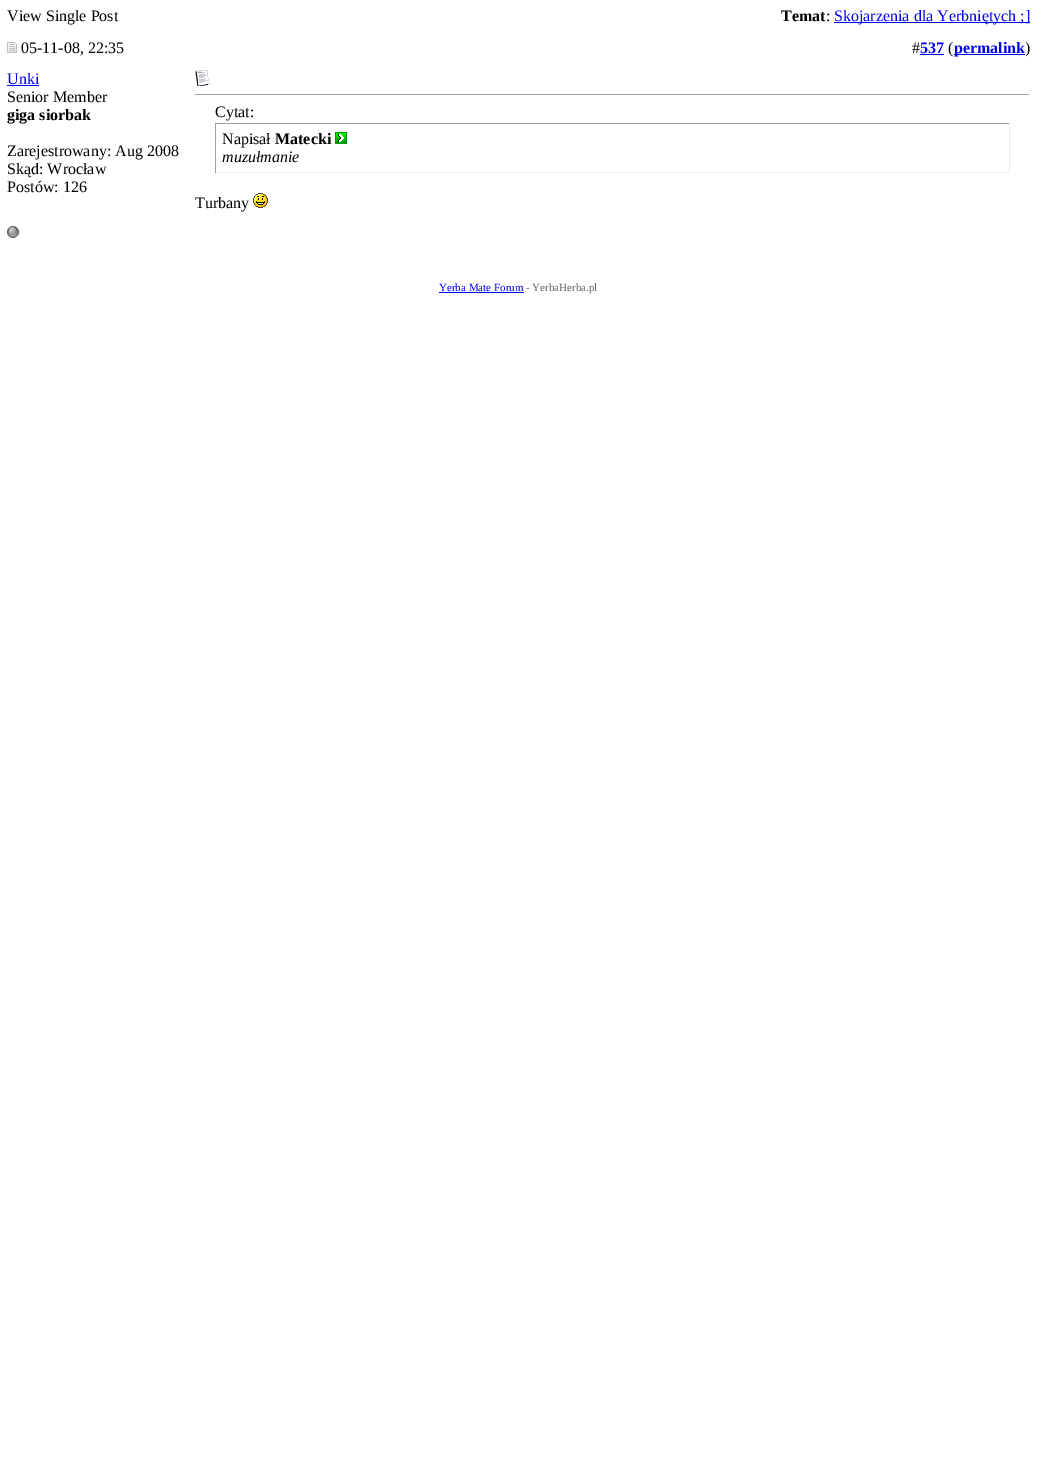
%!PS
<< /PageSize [1037 1482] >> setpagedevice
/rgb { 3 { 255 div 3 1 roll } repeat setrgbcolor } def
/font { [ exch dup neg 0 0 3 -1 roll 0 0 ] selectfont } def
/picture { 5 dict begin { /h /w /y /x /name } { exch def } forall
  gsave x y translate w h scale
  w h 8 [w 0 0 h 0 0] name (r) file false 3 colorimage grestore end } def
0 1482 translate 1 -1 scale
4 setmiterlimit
255 255 255 rgb
0 0 1037 1482 rectfill
0 0 238 rgb
834 22 196 1 rectfill
(img/1.rgb) 7 42 10 11 picture
[
  [920 54 24 1 0 0 238]
  [954 54 71 1 0 0 238]
  [7 85 32 1 0 0 238]
] { aload pop rgb rectfill } forall
(img/2.rgb) 195 70 15 16 picture
[
  [195 94 835 1 159 159 159]
  [1029 94 1 1 238 238 238]
  [215 123 795 1 159 159 159]
  [1009 123 1 50 238 238 238]
  [215 172 795 1 238 238 238]
  [215 123 1 50 159 159 159]
] { aload pop rgb rectfill } forall
(img/3.rgb) 335 132 12 12 picture
(img/4.rgb) 253 193 15 15 picture
(img/5.rgb) 7 226 12 12 picture
0 0 238 rgb
439 292 85 1 rectfill
/LiberationSerif-Regular 16 font
0 0 0 rgb
7 21 moveto (View Single Post) show
/LiberationSerif-Bold 16 font
781 21 moveto (Temat) show
/LiberationSerif-Regular 16 font
826 21 moveto (:) show
0 0 238 rgb
834 21 moveto (Skojarzenia dla Yerbniętych ;]) show
0 0 0 rgb
21 53 moveto (05-11-08, 22:35) show
912 53 moveto (#) show
/LiberationSerif-Bold 16 font
0 0 238 rgb
920 53 moveto (537) show
/LiberationSerif-Regular 16 font
0 0 0 rgb
948 53 moveto (\() show
/LiberationSerif-Bold 16 font
0 0 238 rgb
954 53 moveto (permalink) show
/LiberationSerif-Regular 16 font
0 0 0 rgb
1025 53 moveto (\)) show
0 0 238 rgb
7 84 moveto (Unki) show
0 0 0 rgb
7 102 moveto (Senior Member) show
/LiberationSerif-Bold 16 font
7 120 moveto (giga siorbak) show
/LiberationSerif-Regular 16 font
[
  [(Zarejestrowany: Aug 2008) 7 156]
  [(Skąd: Wrocław) 7 174]
  [(Postów: 126) 7 192]
  [(Cytat:) 215 117]
  [(Napisał) 222 144]
] { aload pop moveto show } forall
/LiberationSerif-Bold 16 font
275 144 moveto (Matecki) show
/LiberationSerif-Italic 16 font
222 162 moveto (muzułmanie) show
/LiberationSerif-Regular 16 font
195 208 moveto (Turbany) show
/LiberationSerif-Regular 11 font
0 0 238 rgb
439 291 moveto (Yerba Mate Forum) show
102 102 102 rgb
526 291 moveto (- YerbaHerba.pl) show
showpage
